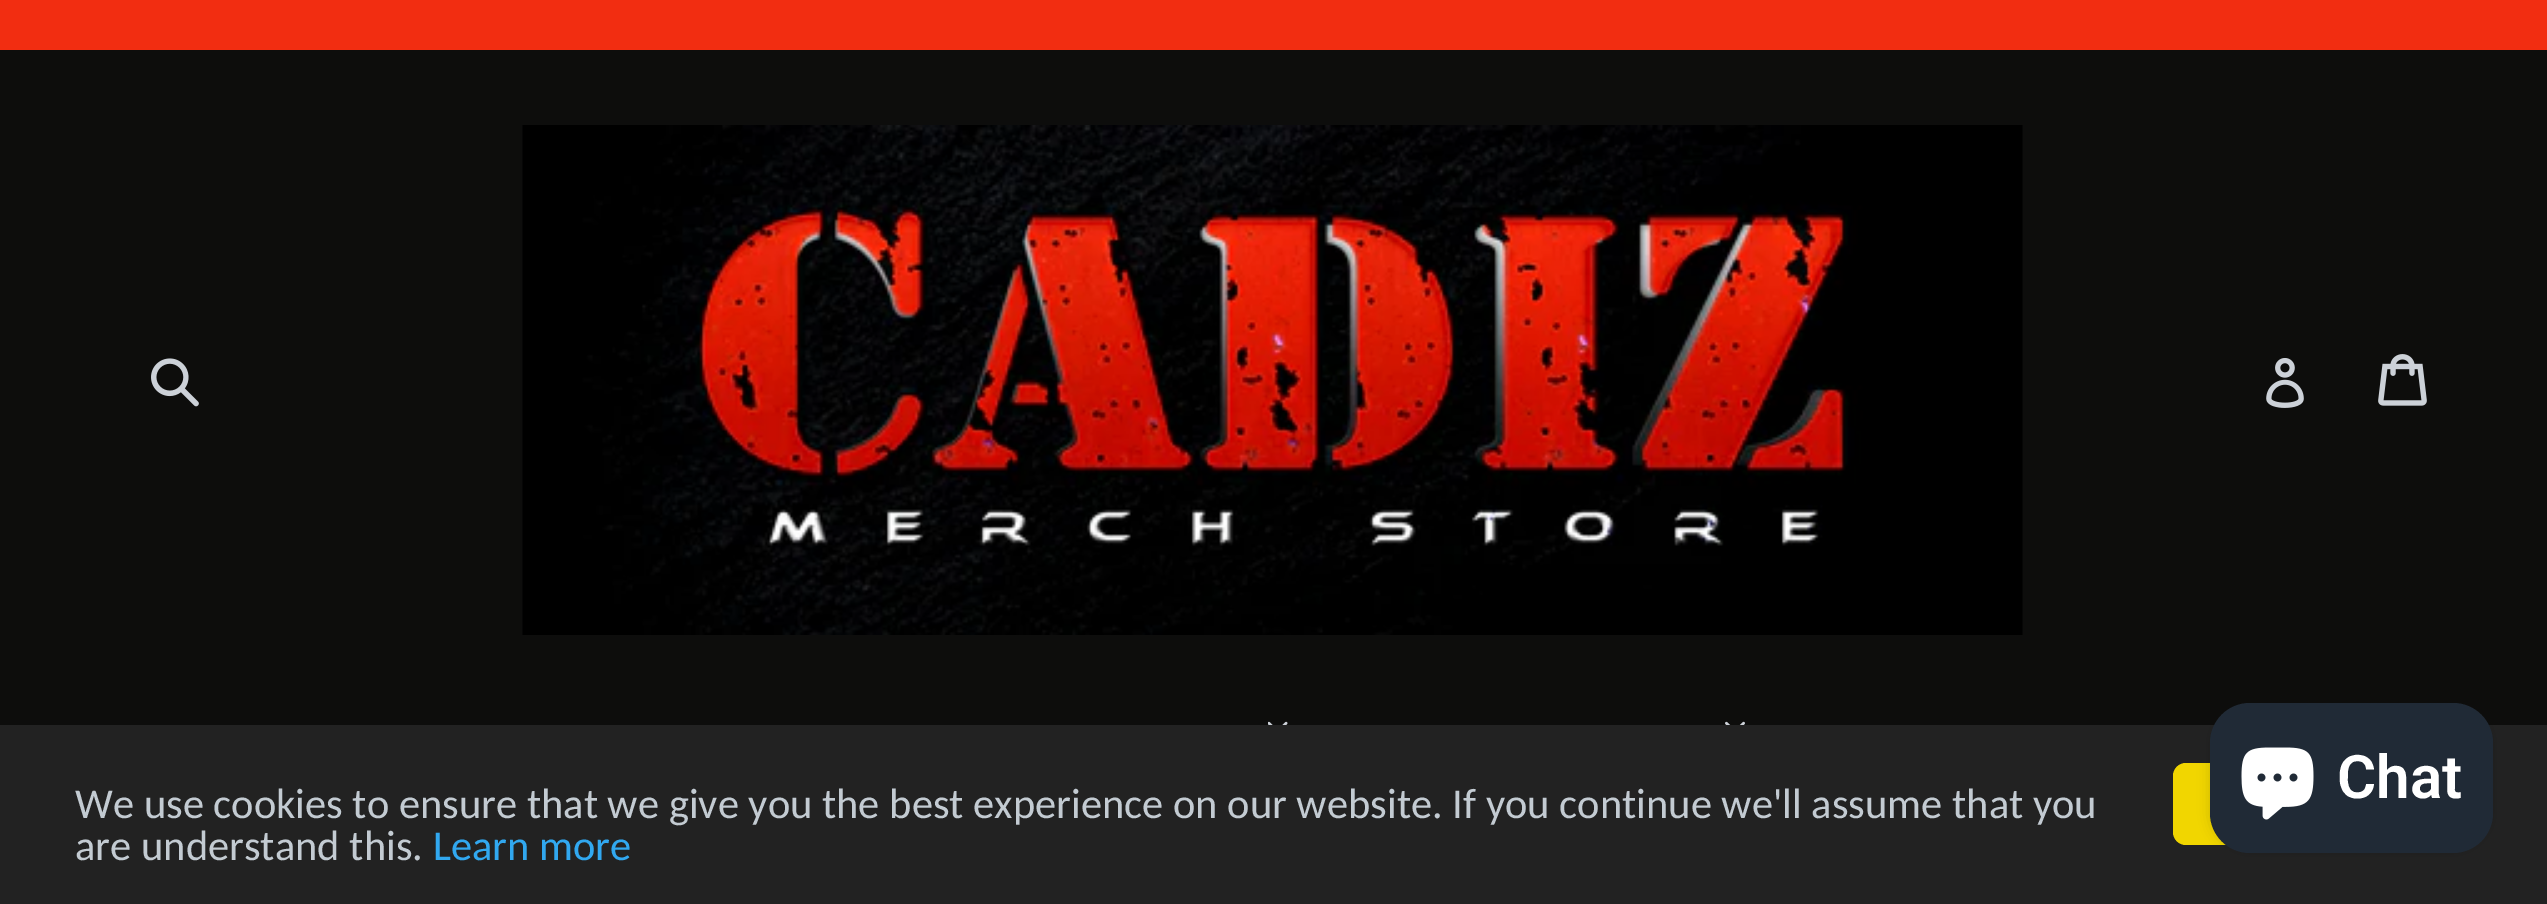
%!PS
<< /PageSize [2547 904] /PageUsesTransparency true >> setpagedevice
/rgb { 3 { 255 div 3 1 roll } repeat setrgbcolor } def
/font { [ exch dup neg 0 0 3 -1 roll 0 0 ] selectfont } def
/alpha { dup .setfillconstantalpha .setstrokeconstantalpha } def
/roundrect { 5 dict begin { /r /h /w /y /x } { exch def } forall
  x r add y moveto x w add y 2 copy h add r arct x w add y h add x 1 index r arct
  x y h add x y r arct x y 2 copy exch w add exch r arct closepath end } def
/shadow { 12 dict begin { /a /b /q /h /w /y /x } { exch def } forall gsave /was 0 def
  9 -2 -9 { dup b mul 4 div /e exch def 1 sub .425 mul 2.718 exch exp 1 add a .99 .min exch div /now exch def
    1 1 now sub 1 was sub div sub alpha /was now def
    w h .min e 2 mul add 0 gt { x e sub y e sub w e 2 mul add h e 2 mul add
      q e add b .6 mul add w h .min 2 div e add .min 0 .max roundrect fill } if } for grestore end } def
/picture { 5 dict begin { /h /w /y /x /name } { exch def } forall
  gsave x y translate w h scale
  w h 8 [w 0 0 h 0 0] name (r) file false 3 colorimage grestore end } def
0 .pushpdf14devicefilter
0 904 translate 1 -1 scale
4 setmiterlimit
13 13 12 rgb
0 0 2547 904 rectfill
242 45 17 rgb
0 0 2547 50 rectfill
(img/1.rgb) 151 358 48 49 picture
(img/2.rgb) 522 125 1501 510 picture
(img/3.rgb) 2266 358 38 50 picture
(img/4.rgb) 2378 354 49 52 picture
(img/5.rgb) 1268 721 20 4 picture
(img/6.rgb) 1725 721 20 4 picture
34 34 34 rgb
0 725 2547 179 rectfill
241 214 0 rgb
2173 763 300 82 13 roundrect fill
0 0 0 rgb
2210 703 283 150 40 6 0.15 shadow
32 42 54 rgb
2210 703 283 150 40 roundrect fill
(img/7.rgb) 2241 747 73 73 picture
/Roboto-SemiBold 60 font
255 255 255 rgb
2337 798 moveto (Chat) show
/Carlito-Regular 42.5 font
195 203 210 rgb
75 818 moveto (We use cookies to ensure that we give you the best experience on our website. If you continue we'll assume that you) show
75 860 moveto (are understand this.) show
49 168 240 rgb
433 860 moveto (Learn more) show
.poppdf14devicefilter showpage
